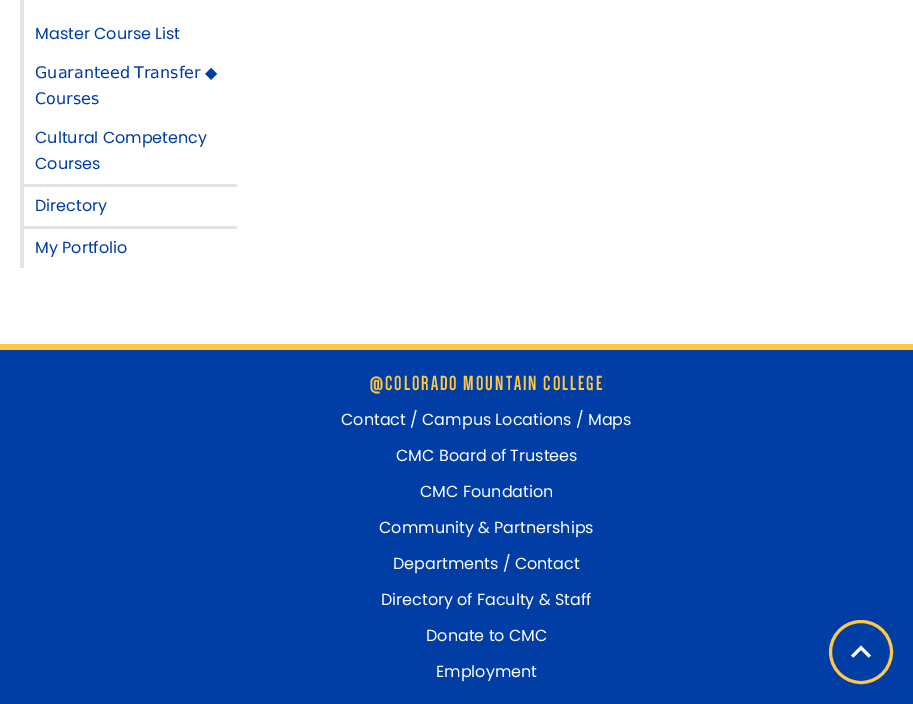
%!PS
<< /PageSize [913 704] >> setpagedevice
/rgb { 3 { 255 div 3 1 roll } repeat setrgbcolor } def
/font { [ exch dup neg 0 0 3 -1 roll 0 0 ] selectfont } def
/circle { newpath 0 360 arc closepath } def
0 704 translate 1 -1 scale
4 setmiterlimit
255 255 255 rgb
0 0 913 704 rectfill
[
  [20 0 4 184 228 228 228]
  [20 184 217 3 228 228 228]
  [20 187 4 39 228 228 228]
  [20 226 217 3 228 228 228]
  [20 229 4 39 228 228 228]
  [0 350 913 354 0 61 165]
  [0 344 913 6 255 200 69]
] { aload pop rgb rectfill } forall
3 setlinewidth
861 652 30.5 circle stroke
255 255 255 rgb
853.5 657.5 moveto 861 650 lineto 868.5 657.5 lineto 871 655.5 lineto 861 645.5 lineto 851 655.5 lineto closepath fill
/Poppins-Regular 16 font
0 61 165 rgb
35 39 moveto (Master Course List) show
/DejaVuSans-Regular 16 font
35 78 moveto -1 0 32 (Guaranteed Transfer ◆) widthshow
35 104 moveto (Courses) show
/Poppins-Regular 16 font
[
  [(Cultural Competency) 35 143]
  [(Courses) 35 169]
  [(Directory) 35 211]
  [(My Portfolio) 35 253]
] { aload pop moveto show } forall
/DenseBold-Regular 21 font
255 200 69 rgb
370 390 moveto 2 0 (@COLORADO MOUNTAIN COLLEGE) ashow
/Poppins-Regular 16 font
255 255 255 rgb
[
  [(Contact / Campus Locations / Maps) 341 425]
  [(CMC Board of Trustees) 396 461]
  [(CMC Foundation) 420 497]
  [(Community & Partnerships) 379 533]
  [(Departments / Contact) 393 569]
  [(Directory of Faculty & Staff) 381 605]
  [(Donate to CMC) 426 641]
  [(Employment) 436 677]
] { aload pop moveto show } forall
showpage
